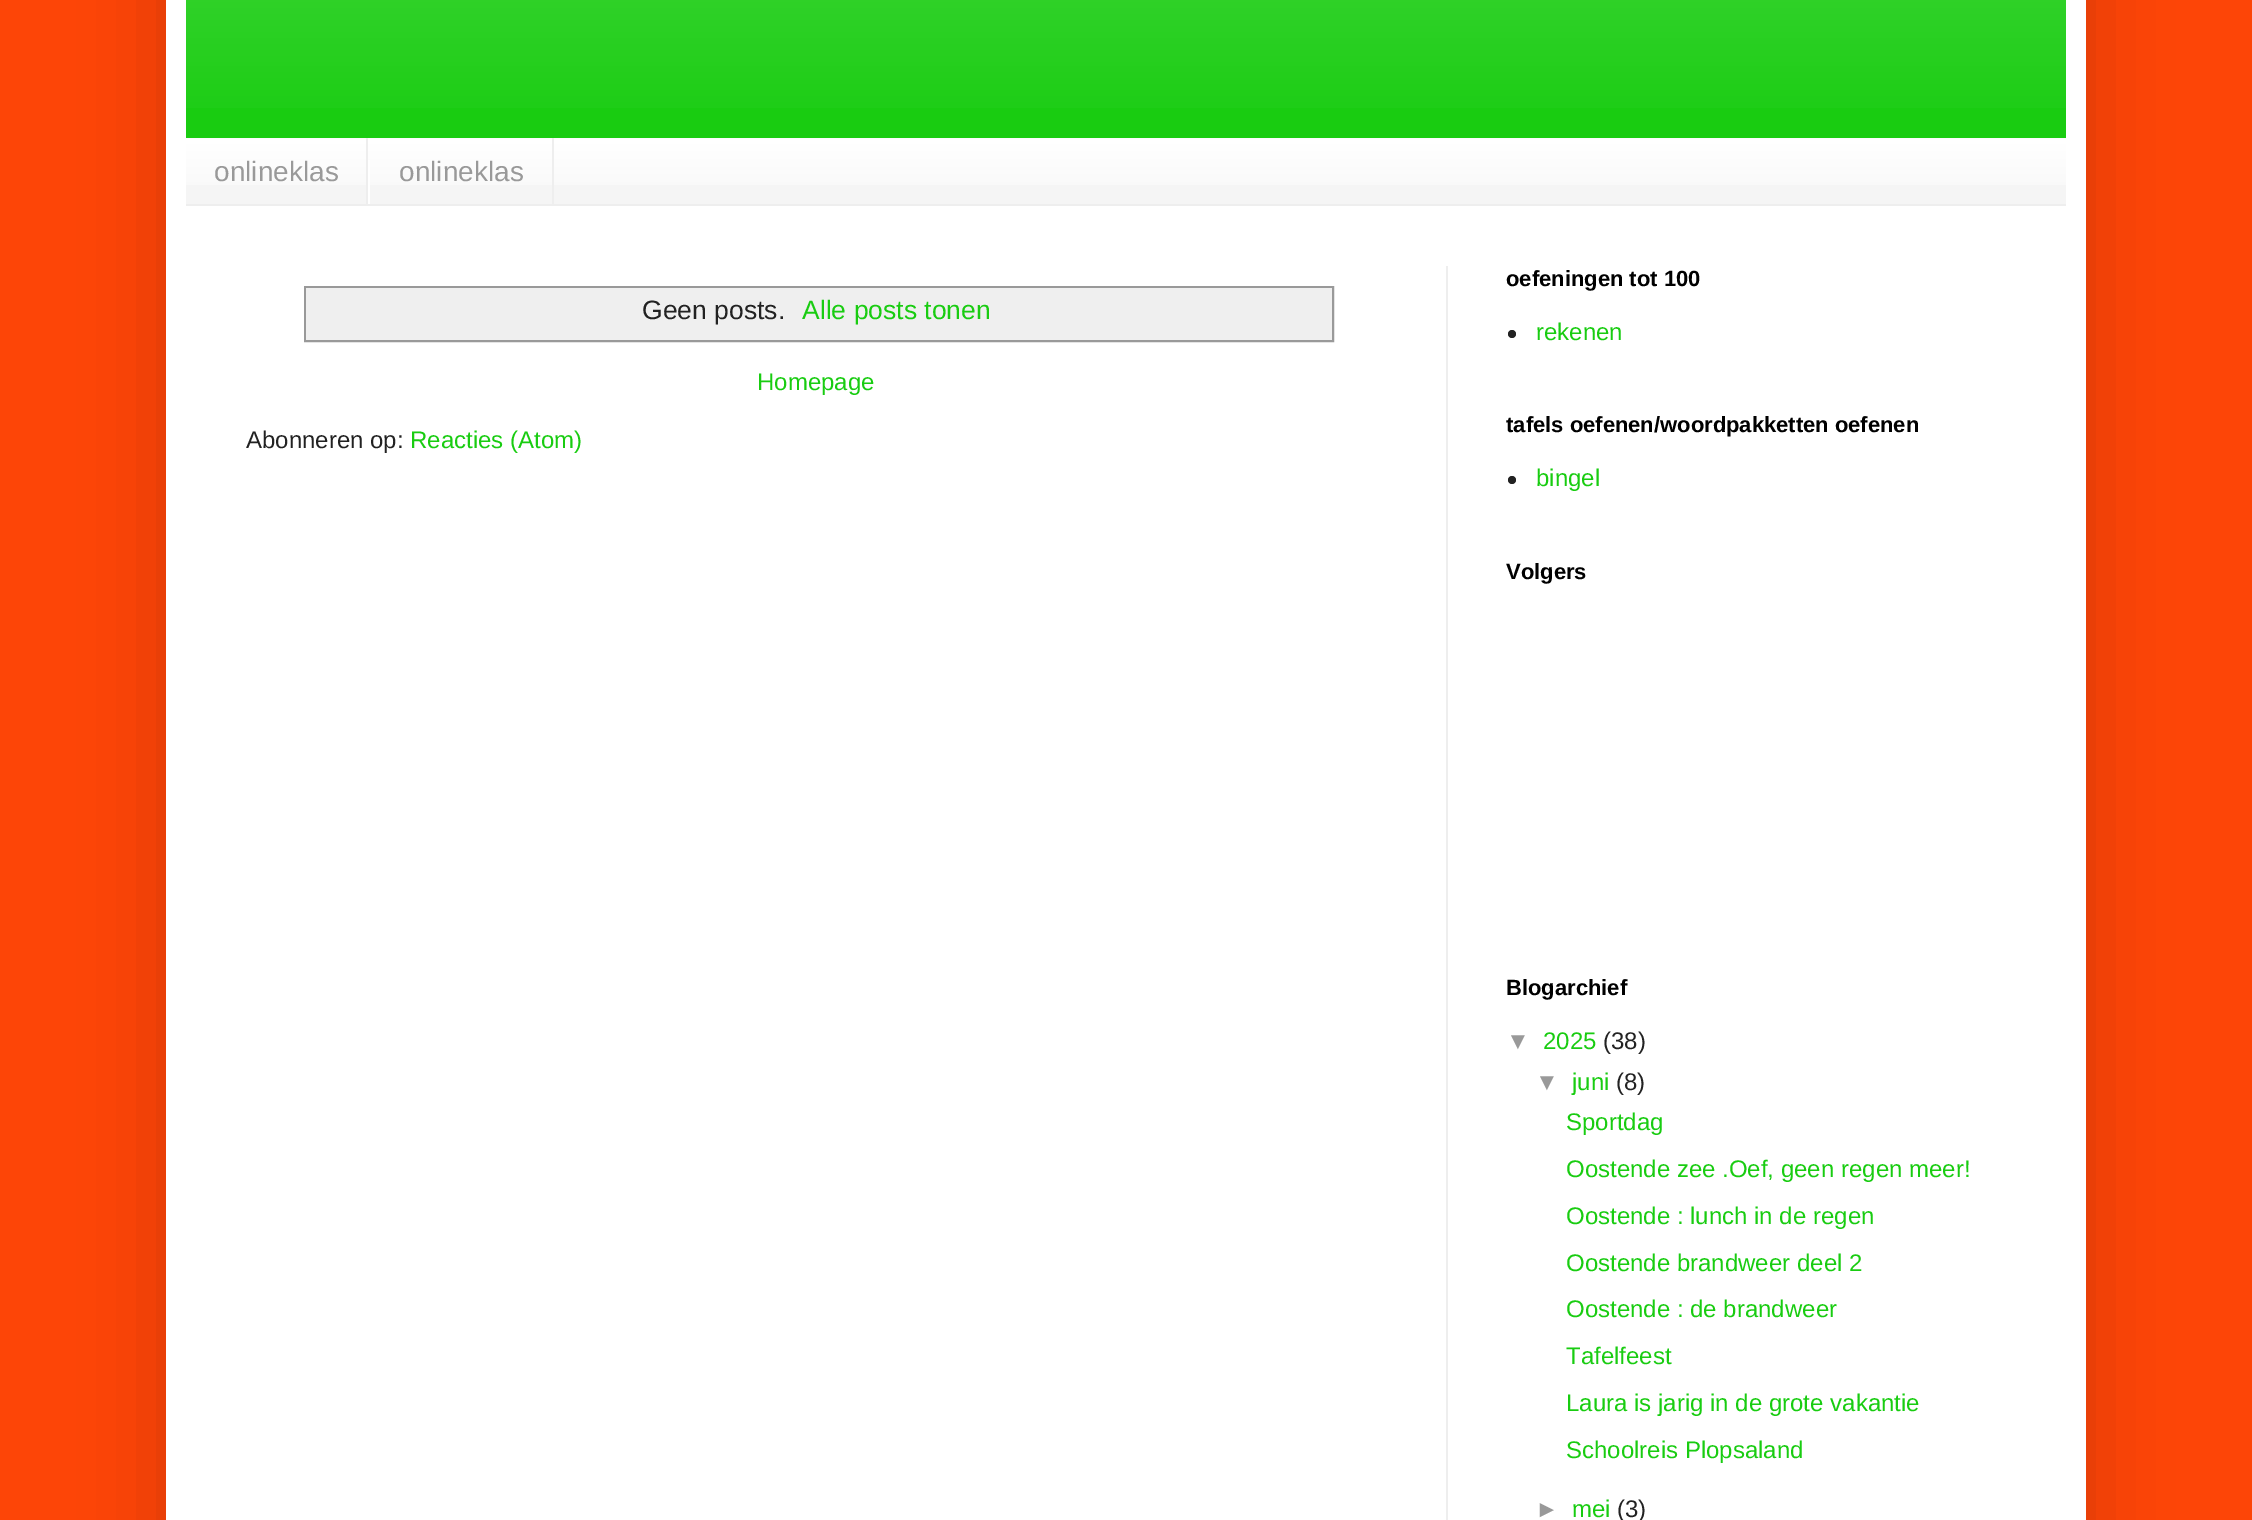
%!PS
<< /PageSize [2252 1520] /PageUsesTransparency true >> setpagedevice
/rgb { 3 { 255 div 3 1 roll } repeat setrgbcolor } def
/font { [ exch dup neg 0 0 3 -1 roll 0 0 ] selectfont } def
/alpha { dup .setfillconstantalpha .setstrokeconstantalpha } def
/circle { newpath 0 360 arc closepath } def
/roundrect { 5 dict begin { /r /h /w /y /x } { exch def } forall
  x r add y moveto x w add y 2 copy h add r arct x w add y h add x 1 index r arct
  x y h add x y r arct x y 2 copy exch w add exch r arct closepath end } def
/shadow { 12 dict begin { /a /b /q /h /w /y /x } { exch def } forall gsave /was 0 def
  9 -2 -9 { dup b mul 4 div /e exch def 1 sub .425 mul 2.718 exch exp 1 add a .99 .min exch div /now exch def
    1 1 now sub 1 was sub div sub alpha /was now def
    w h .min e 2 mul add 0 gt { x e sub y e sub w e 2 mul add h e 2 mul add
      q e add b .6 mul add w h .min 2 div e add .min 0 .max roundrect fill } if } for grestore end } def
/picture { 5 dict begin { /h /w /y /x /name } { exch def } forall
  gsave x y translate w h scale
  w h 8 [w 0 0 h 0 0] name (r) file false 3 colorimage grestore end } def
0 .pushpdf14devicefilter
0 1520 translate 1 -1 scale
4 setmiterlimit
253 69 7 rgb
0 0 2252 1520 rectfill
0 0 0 rgb
166 -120 1920 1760 0 40 0.15 shadow
255 255 255 rgb
166 0 1920 1520 rectfill
25 204 17 rgb
186 0 1880 138 rectfill
(img/1.rgb) 186 0 1880 108 picture
245 245 245 rgb
186 138 1880 66 rectfill
(img/2.rgb) 186 138 1880 47 picture
[
  [186 204 1880 2 238 238 238]
  [366 138 2 66 238 238 238]
  [552 138 2 66 238 238 238]
  [368 160 2 44 255 255 255]
  [1446 266 2 1254 238 238 238]
] { aload pop rgb rectfill } forall
153 153 153 rgb
2 setlinewidth
305 287 1028 54 rectstroke
239 239 239 rgb
306 288 1026 52 rectfill
34 34 34 rgb
1512 334 4 circle fill
1512 480 4 circle fill
/LiberationSans-Regular 28 font
153 153 153 rgb
214 181 moveto (onlineklas) show
399 181 moveto (onlineklas) show
/LiberationSans-Regular 26.5 font
34 34 34 rgb
642 319 moveto (Geen posts.) show
25 204 17 rgb
802 319 moveto (Alle posts tonen) show
/LiberationSans-Regular 24 font
757 390 moveto (Homepage) show
34 34 34 rgb
246 448 moveto (Abonneren op:) show
25 204 17 rgb
410 448 moveto (Reacties \(Atom\)) show
/LiberationSans-Bold 22 font
0 0 0 rgb
1506 286 moveto (oefeningen tot 100) show
/LiberationSans-Regular 24 font
25 204 17 rgb
1536 340 moveto (rekenen) show
/LiberationSans-Bold 22 font
0 0 0 rgb
1506 432 moveto (tafels oefenen/woordpakketten oefenen) show
/LiberationSans-Regular 24 font
25 204 17 rgb
1536 486 moveto (bingel) show
/LiberationSans-Bold 22 font
0 0 0 rgb
1506 579 moveto (Volgers) show
1506 995 moveto (Blogarchief) show
/LiberationSans-Regular 24 font
153 153 153 rgb
1506 1049 moveto (▼) show
25 204 17 rgb
1543 1049 moveto (2025) show
34 34 34 rgb
1603 1049 moveto (\(38\)) show
153 153 153 rgb
1535 1090 moveto (▼) show
25 204 17 rgb
1572 1090 moveto (juni) show
34 34 34 rgb
1616 1090 moveto (\(8\)) show
25 204 17 rgb
[
  [(Sportdag) 1566 1130]
  [(Oostende zee .Oef, geen regen meer!) 1566 1177]
  [(Oostende : lunch in de regen) 1566 1224]
  [(Oostende brandweer deel 2) 1566 1271]
  [(Oostende : de brandweer) 1566 1317]
  [(Tafelfeest) 1566 1364]
  [(Laura is jarig in de grote vakantie) 1566 1411]
  [(Schoolreis Plopsaland) 1566 1458]
] { aload pop moveto show } forall
153 153 153 rgb
1535 1517 moveto (►) show
25 204 17 rgb
1572 1517 moveto (mei) show
34 34 34 rgb
1617 1517 moveto (\(3\)) show
.poppdf14devicefilter showpage
